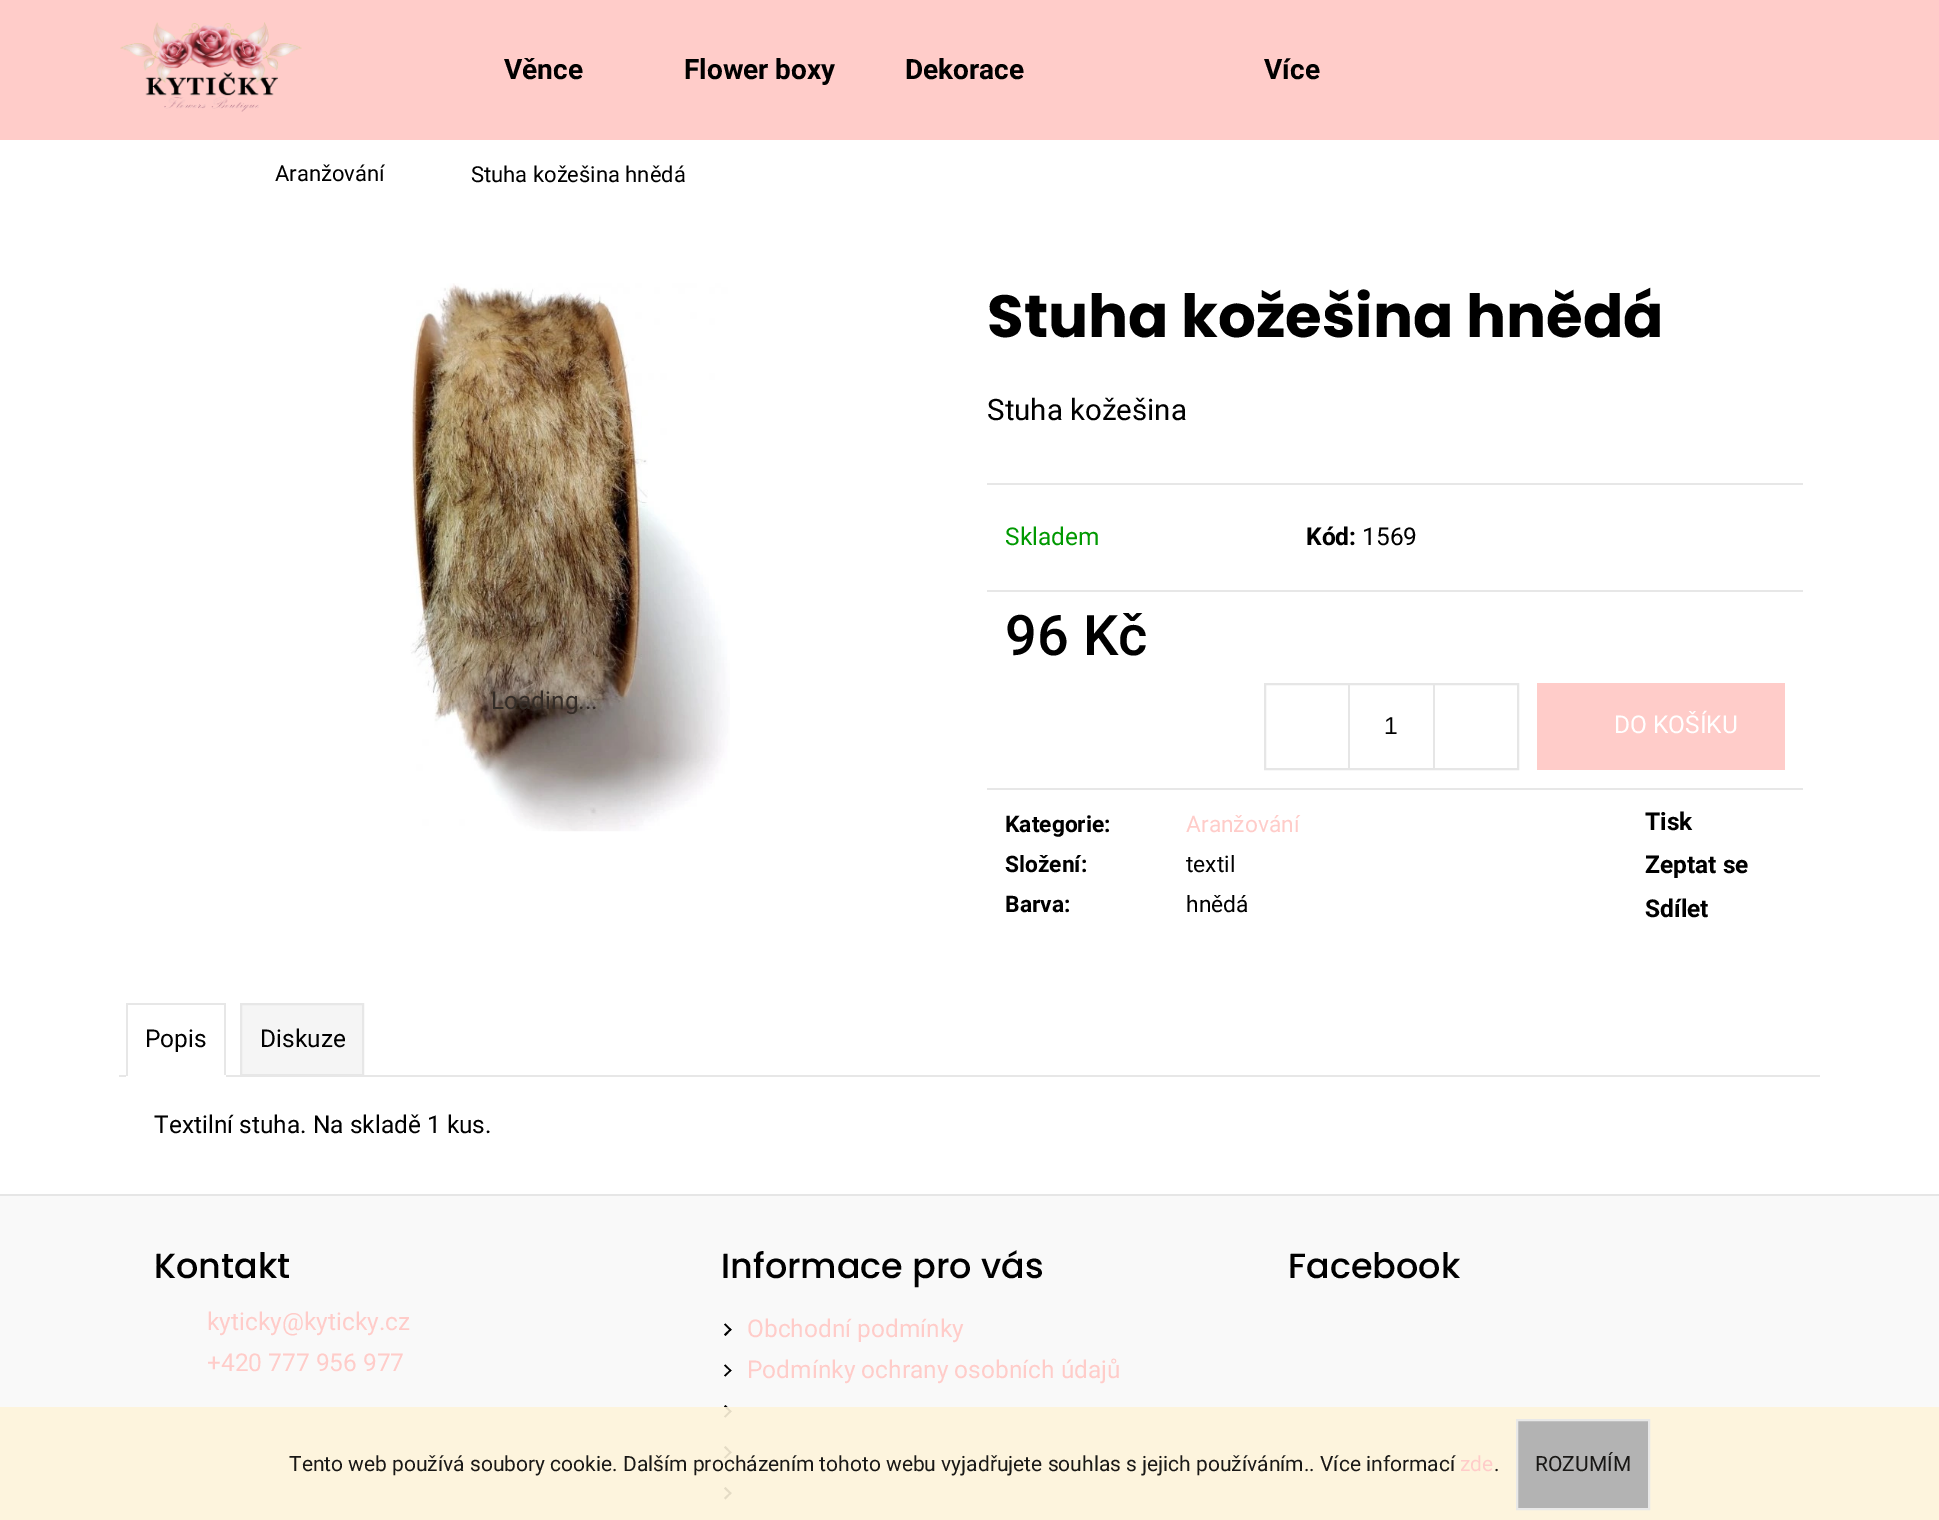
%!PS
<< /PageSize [1939 1520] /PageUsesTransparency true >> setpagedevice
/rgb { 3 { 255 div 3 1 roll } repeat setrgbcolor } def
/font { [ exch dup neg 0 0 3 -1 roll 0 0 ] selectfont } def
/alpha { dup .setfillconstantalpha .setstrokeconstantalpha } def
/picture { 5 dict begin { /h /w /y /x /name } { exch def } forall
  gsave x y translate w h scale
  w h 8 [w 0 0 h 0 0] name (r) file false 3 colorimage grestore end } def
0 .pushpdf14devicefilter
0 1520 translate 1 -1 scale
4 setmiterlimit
255 255 255 rgb
0 0 1939 1520 rectfill
255 204 201 rgb
0 0 1939 140 rectfill
(img/1.rgb) 120 22 182 90 picture
(img/2.rgb) 410 283 320 549 picture
[
  [987 483 816 2 231 231 231]
  [987 590 816 2 231 231 231]
  [987 788 816 2 231 231 231]
] { aload pop rgb rectfill } forall
230 230 230 rgb
2 setlinewidth
1265 684 253 85 rectstroke
[
  [1348 684 2 84 230 230 230]
  [1433 684 2 84 230 230 230]
  [1537 683 248 87 255 204 201]
  [119 1075 1701 2 231 231 231]
  [126 1003 100 2 231 231 231]
  [224 1003 2 73 231 231 231]
  [126 1075 100 2 255 255 255]
  [126 1003 2 73 231 231 231]
] { aload pop rgb rectfill } forall
245 245 245 rgb
241 1004 moveto 363 1004 lineto 363 1075 lineto 241 1075 lineto closepath gsave fill grestore
231 231 231 rgb
stroke
249 249 249 rgb
0 1196 1939 324 rectfill
230 230 230 rgb
0 1194 1939 2 rectfill
0 0 0 rgb
724 1324.5 moveto 725.5 1323.5 lineto 731.5 1329.5 lineto 730.5 1331 lineto closepath fill
724 1334.5 moveto 730.5 1328.5 lineto 731.5 1329.5 lineto 725.5 1336 lineto closepath fill
724 1365.5 moveto 725.5 1364.5 lineto 731.5 1370.5 lineto 730.5 1371.5 lineto closepath fill
724 1375.5 moveto 730.5 1369.5 lineto 731.5 1370.5 lineto 725.5 1376.5 lineto closepath 724 1406.5 moveto 725.5 1405 lineto 731.5 1411.5 lineto 730.5 1412.5 lineto closepath fill
724 1416.5 moveto 730.5 1410 lineto 731.5 1411.5 lineto 725.5 1417.5 lineto closepath 724 1447.5 moveto 725.5 1446 lineto 731.5 1452.5 lineto 730.5 1453.5 lineto closepath fill
724 1457.5 moveto 730.5 1451 lineto 731.5 1452.5 lineto 725.5 1458.5 lineto closepath 724 1488.5 moveto 725.5 1487 lineto 731.5 1493 lineto 730.5 1494.5 lineto closepath fill
724 1498 moveto 730.5 1492 lineto 731.5 1493 lineto 725.5 1499.5 lineto closepath fill
0.9 alpha
253 243 218 rgb
0 1407 1939 113 rectfill
1 alpha
179 179 179 rgb
1517 1420 moveto 1649 1420 lineto 1649 1509 lineto 1517 1509 lineto closepath gsave fill grestore
232 232 232 rgb
stroke
/Roboto-Bold 28 font
0 0 0 rgb
[
  [(Věnce) 504 79]
  [(Flower boxy) 684 79]
  [(Dekorace) 905 79]
  [(Více) 1264 79]
] { aload pop moveto show } forall
/Roboto-Regular 22 font
275 181 moveto (Aranžování) show
471 182 moveto (Stuha kožešina hnědá) show
/Roboto-Regular 24.5 font
51 44 39 rgb
491 709 moveto (Loading...) show
/Poppins-Bold 59.5 font
0 0 0 rgb
987 337 moveto (Stuha kožešina hnědá) show
/Roboto-Regular 29.5 font
987 420 moveto (Stuha kožešina) show
/Roboto-Regular 24.5 font
0 153 1 rgb
1005 545 moveto (Skladem) show
/Roboto-Bold 24.5 font
0 0 0 rgb
1306 545 moveto (Kód:) show
/Roboto-Regular 24.5 font
1362 545 moveto (1569) show
/Roboto-Medium 56 font
1005 655 moveto (96 Kč) show
/LiberationSans-Regular 24.5 font
1384 734 moveto (1) show
/Roboto-Regular 24.5 font
255 255 255 rgb
1614 733 moveto (DO KOŠÍKU) show
/Roboto-Bold 22.75 font
0 0 0 rgb
1005 832 moveto (Kategorie:) show
/Roboto-Regular 22.75 font
255 204 201 rgb
1186 832 moveto (Aranžování) show
/Roboto-Bold 22.75 font
0 0 0 rgb
1005 872 moveto (Složení:) show
/Roboto-Regular 22.75 font
1186 872 moveto (textil) show
/Roboto-Bold 22.75 font
1005 912 moveto (Barva:) show
/Roboto-Regular 22.75 font
1186 912 moveto (hnědá) show
/Roboto-Bold 24.5 font
[
  [(Tisk) 1645 830]
  [(Zeptat se) 1645 873]
  [(Sdílet) 1645 917]
] { aload pop moveto show } forall
/Roboto-Regular 24.5 font
[
  [(Popis) 145 1047]
  [(Diskuze) 260 1047]
  [(Textilní stuha. Na skladě 1 kus.) 154 1133]
] { aload pop moveto show } forall
/Poppins-Medium 35 font
154 1278 moveto (Kontakt) show
/Roboto-Regular 24.5 font
255 204 201 rgb
207 1330 moveto (kyticky@kyticky.cz) show
207 1371 moveto (+420 777 956 977) show
/Poppins-Medium 35 font
0 0 0 rgb
721 1278 moveto (Informace pro vás) show
/Roboto-Regular 24.5 font
255 204 201 rgb
747 1337 moveto (Obchodní podmínky) show
747 1378 moveto (Podmínky ochrany osobních údajů) show
/Poppins-Medium 35 font
0 0 0 rgb
1288 1278 moveto (Facebook) show
/Roboto-Regular 21 font
25 24 22 rgb
289 1471 moveto (Tento web používá soubory cookie. Dalším procházením tohoto webu vyjadřujete souhlas s jejich používáním.. Více informací) show
255 204 201 rgb
1460 1471 moveto (zde) show
25 24 22 rgb
1494 1471 moveto (.) show
1535 1471 moveto (ROZUMÍM) show
.poppdf14devicefilter showpage
